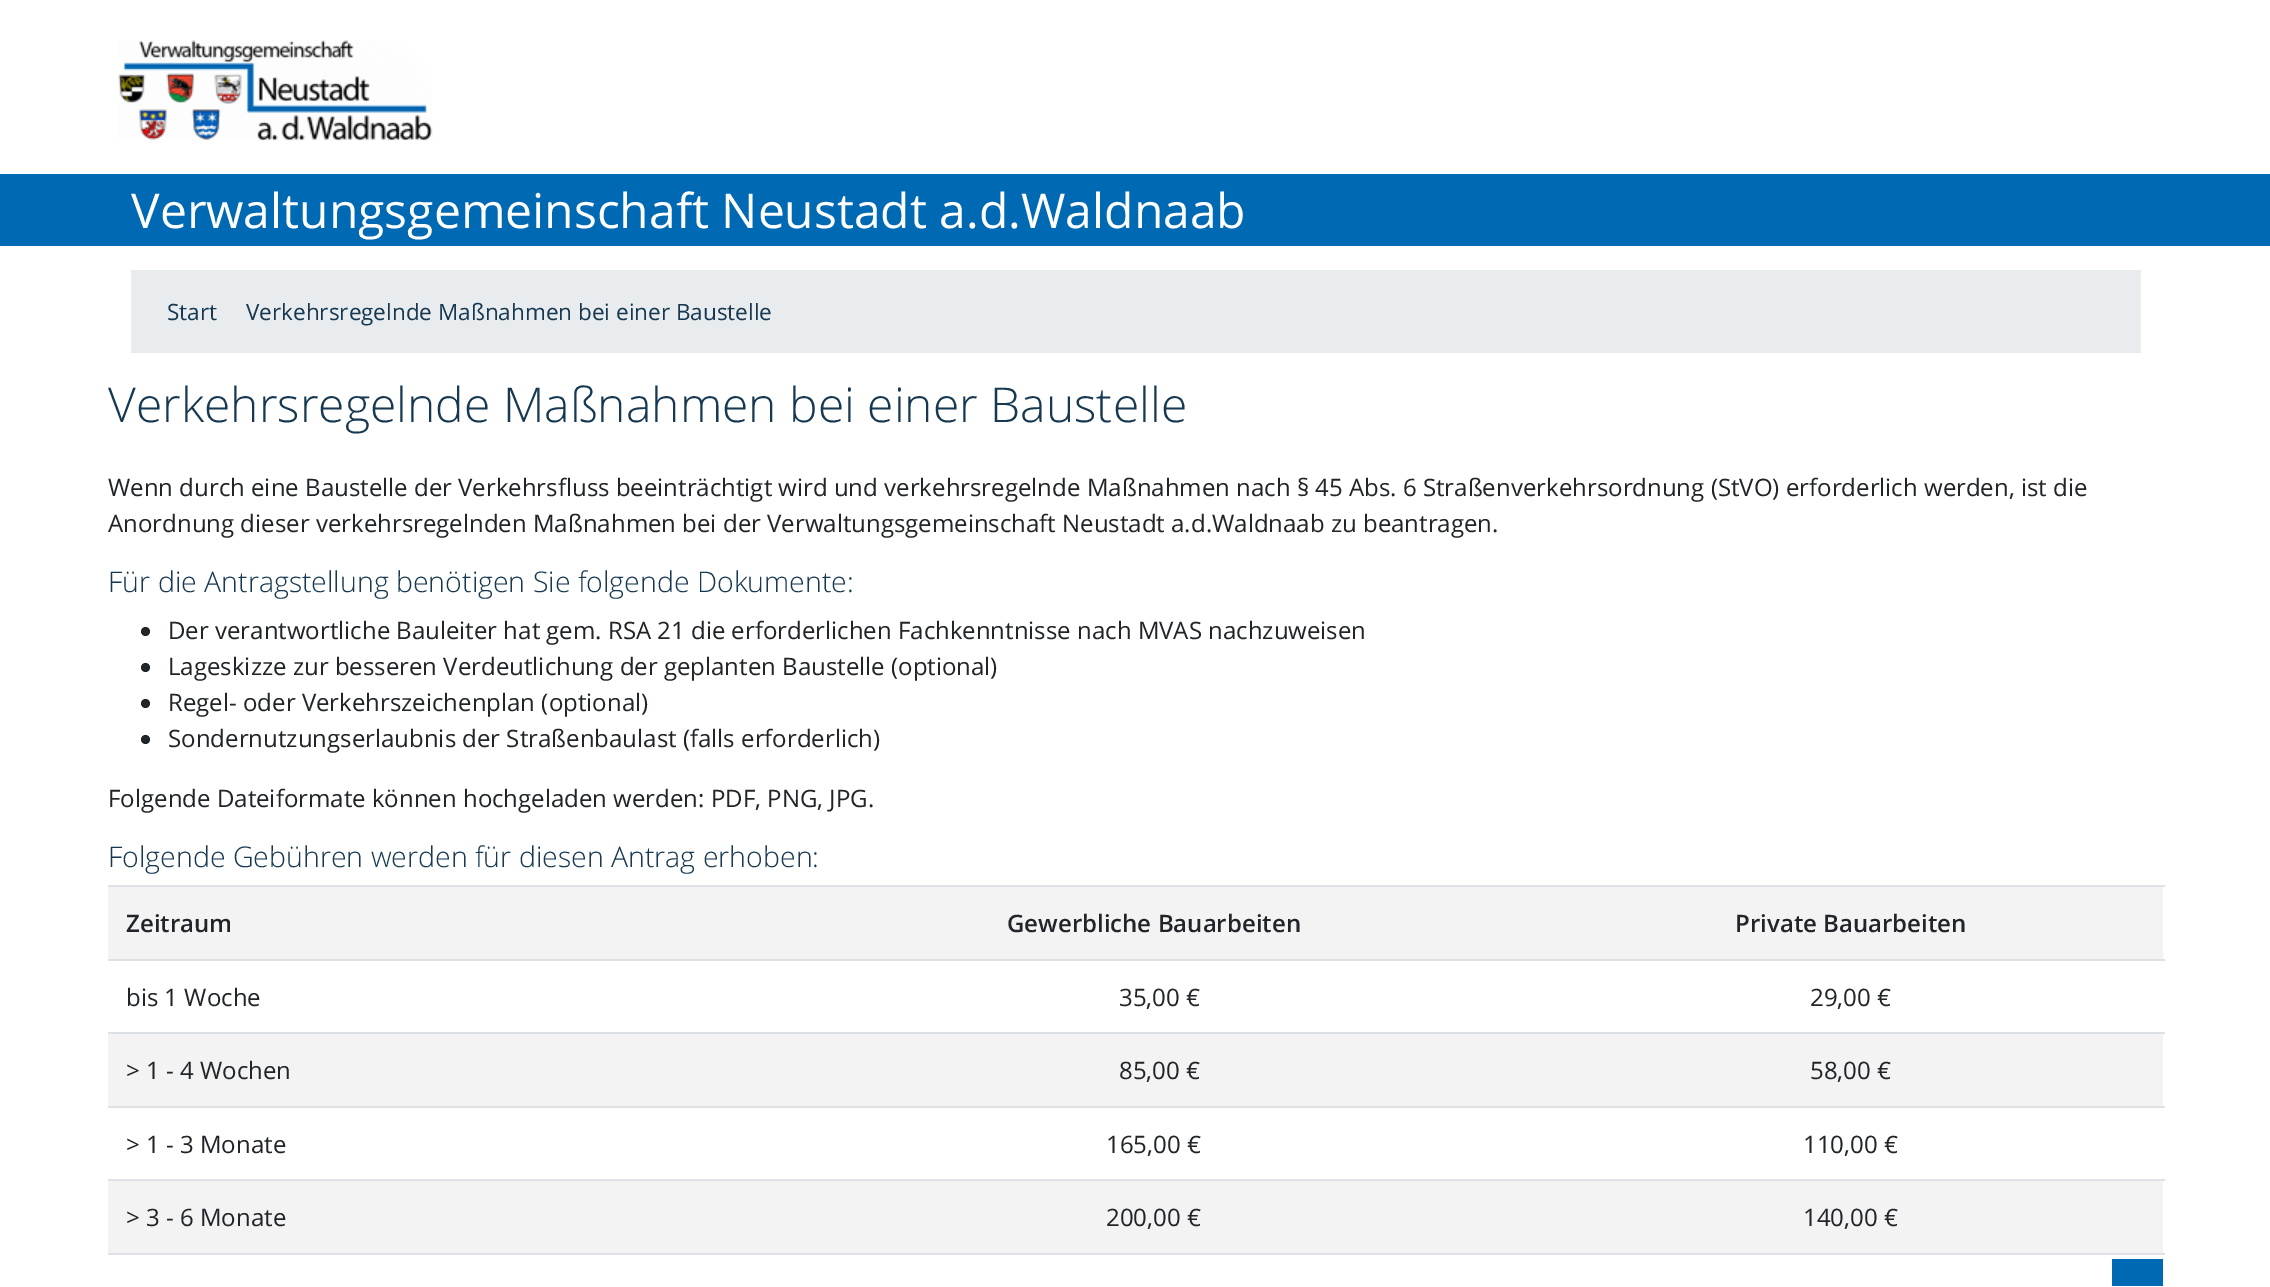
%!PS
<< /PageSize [2270 1287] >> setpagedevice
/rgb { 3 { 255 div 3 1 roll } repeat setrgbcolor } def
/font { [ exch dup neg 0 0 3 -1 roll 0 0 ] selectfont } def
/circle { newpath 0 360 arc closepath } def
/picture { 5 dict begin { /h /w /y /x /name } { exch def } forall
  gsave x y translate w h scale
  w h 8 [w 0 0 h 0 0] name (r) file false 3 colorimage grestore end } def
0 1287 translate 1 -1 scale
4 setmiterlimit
255 255 255 rgb
0 0 2270 1287 rectfill
(img/1.rgb) 118 40 315 101 picture
0 105 180 rgb
0 174 2270 72 rectfill
233 236 239 rgb
131 270 2010 83 rectfill
33 37 41 rgb
145.5 631.5 4.5 circle fill
145.5 667.5 4.5 circle fill
145.5 703.5 4.5 circle fill
145.5 739.5 4.5 circle fill
[
  [108 887 2055 72 243 243 243]
  [108 885 2057 2 222 226 230]
  [108 959 2057 2 222 226 230]
  [108 1034 2055 72 243 243 243]
  [108 1032 2057 2 222 226 230]
  [108 1106 2057 2 222 226 230]
  [108 1181 2055 72 243 243 243]
  [108 1179 2057 2 222 226 230]
  [108 1253 2057 2 222 226 230]
  [2112 1259 51 27 0 105 180]
] { aload pop rgb rectfill } forall
/OpenSans-Regular 48 font
255 255 255 rgb
131 228 moveto (Verwaltungsgemeinschaft Neustadt a.d.Waldnaab) show
/OpenSans-Regular 22.5 font
22 56 80 rgb
167 320 moveto (Start) show
246 320 moveto (Verkehrsregelnde Maßnahmen bei einer Baustelle) show
/OpenSans-Light 48 font
108 422 moveto (Verkehrsregelnde Maßnahmen bei einer Baustelle) show
/OpenSans-Regular 24 font
33 37 41 rgb
108 496 moveto (Wenn durch eine Baustelle der Verkehrsfluss beeinträchtigt wird und verkehrsregelnde Maßnahmen nach § 45 Abs. 6 Straßenverkehrsordnung \(StVO\) erforderlich werden, ist die) show
108 532 moveto (Anordnung dieser verkehrsregelnden Maßnahmen bei der Verwaltungsgemeinschaft Neustadt a.d.Waldnaab zu beantragen.) show
/OpenSans-Light 28.5 font
22 56 80 rgb
108 592 moveto (Für die Antragstellung benötigen Sie folgende Dokumente:) show
/OpenSans-Regular 24 font
33 37 41 rgb
[
  [(Der verantwortliche Bauleiter hat gem. RSA 21 die erforderlichen Fachkenntnisse nach MVAS nachzuweisen) 168 639]
  [(Lageskizze zur besseren Verdeutlichung der geplanten Baustelle \(optional\)) 168 675]
  [(Regel- oder Verkehrszeichenplan \(optional\)) 168 711]
  [(Sondernutzungserlaubnis der Straßenbaulast \(falls erforderlich\)) 168 747]
  [(Folgende Dateiformate können hochgeladen werden: PDF, PNG, JPG.) 108 807]
] { aload pop moveto show } forall
/OpenSans-Light 28.5 font
22 56 80 rgb
108 867 moveto (Folgende Gebühren werden für diesen Antrag erhoben:) show
/OpenSans-SemiBold 24 font
33 37 41 rgb
[
  [(Zeitraum) 126 932]
  [(Gewerbliche Bauarbeiten) 1007 932]
  [(Private Bauarbeiten) 1735 932]
] { aload pop moveto show } forall
/OpenSans-Regular 24 font
[
  [(bis 1 Woche) 126 1006]
  [(35,00 €) 1119 1006]
  [(29,00 €) 1810 1006]
  [(> 1 - 4 Wochen) 126 1079]
  [(85,00 €) 1119 1079]
  [(58,00 €) 1810 1079]
  [(> 1 - 3 Monate) 126 1153]
  [(165,00 €) 1106 1153]
  [(110,00 €) 1803 1153]
  [(> 3 - 6 Monate) 126 1226]
  [(200,00 €) 1106 1226]
  [(140,00 €) 1803 1226]
] { aload pop moveto show } forall
showpage
